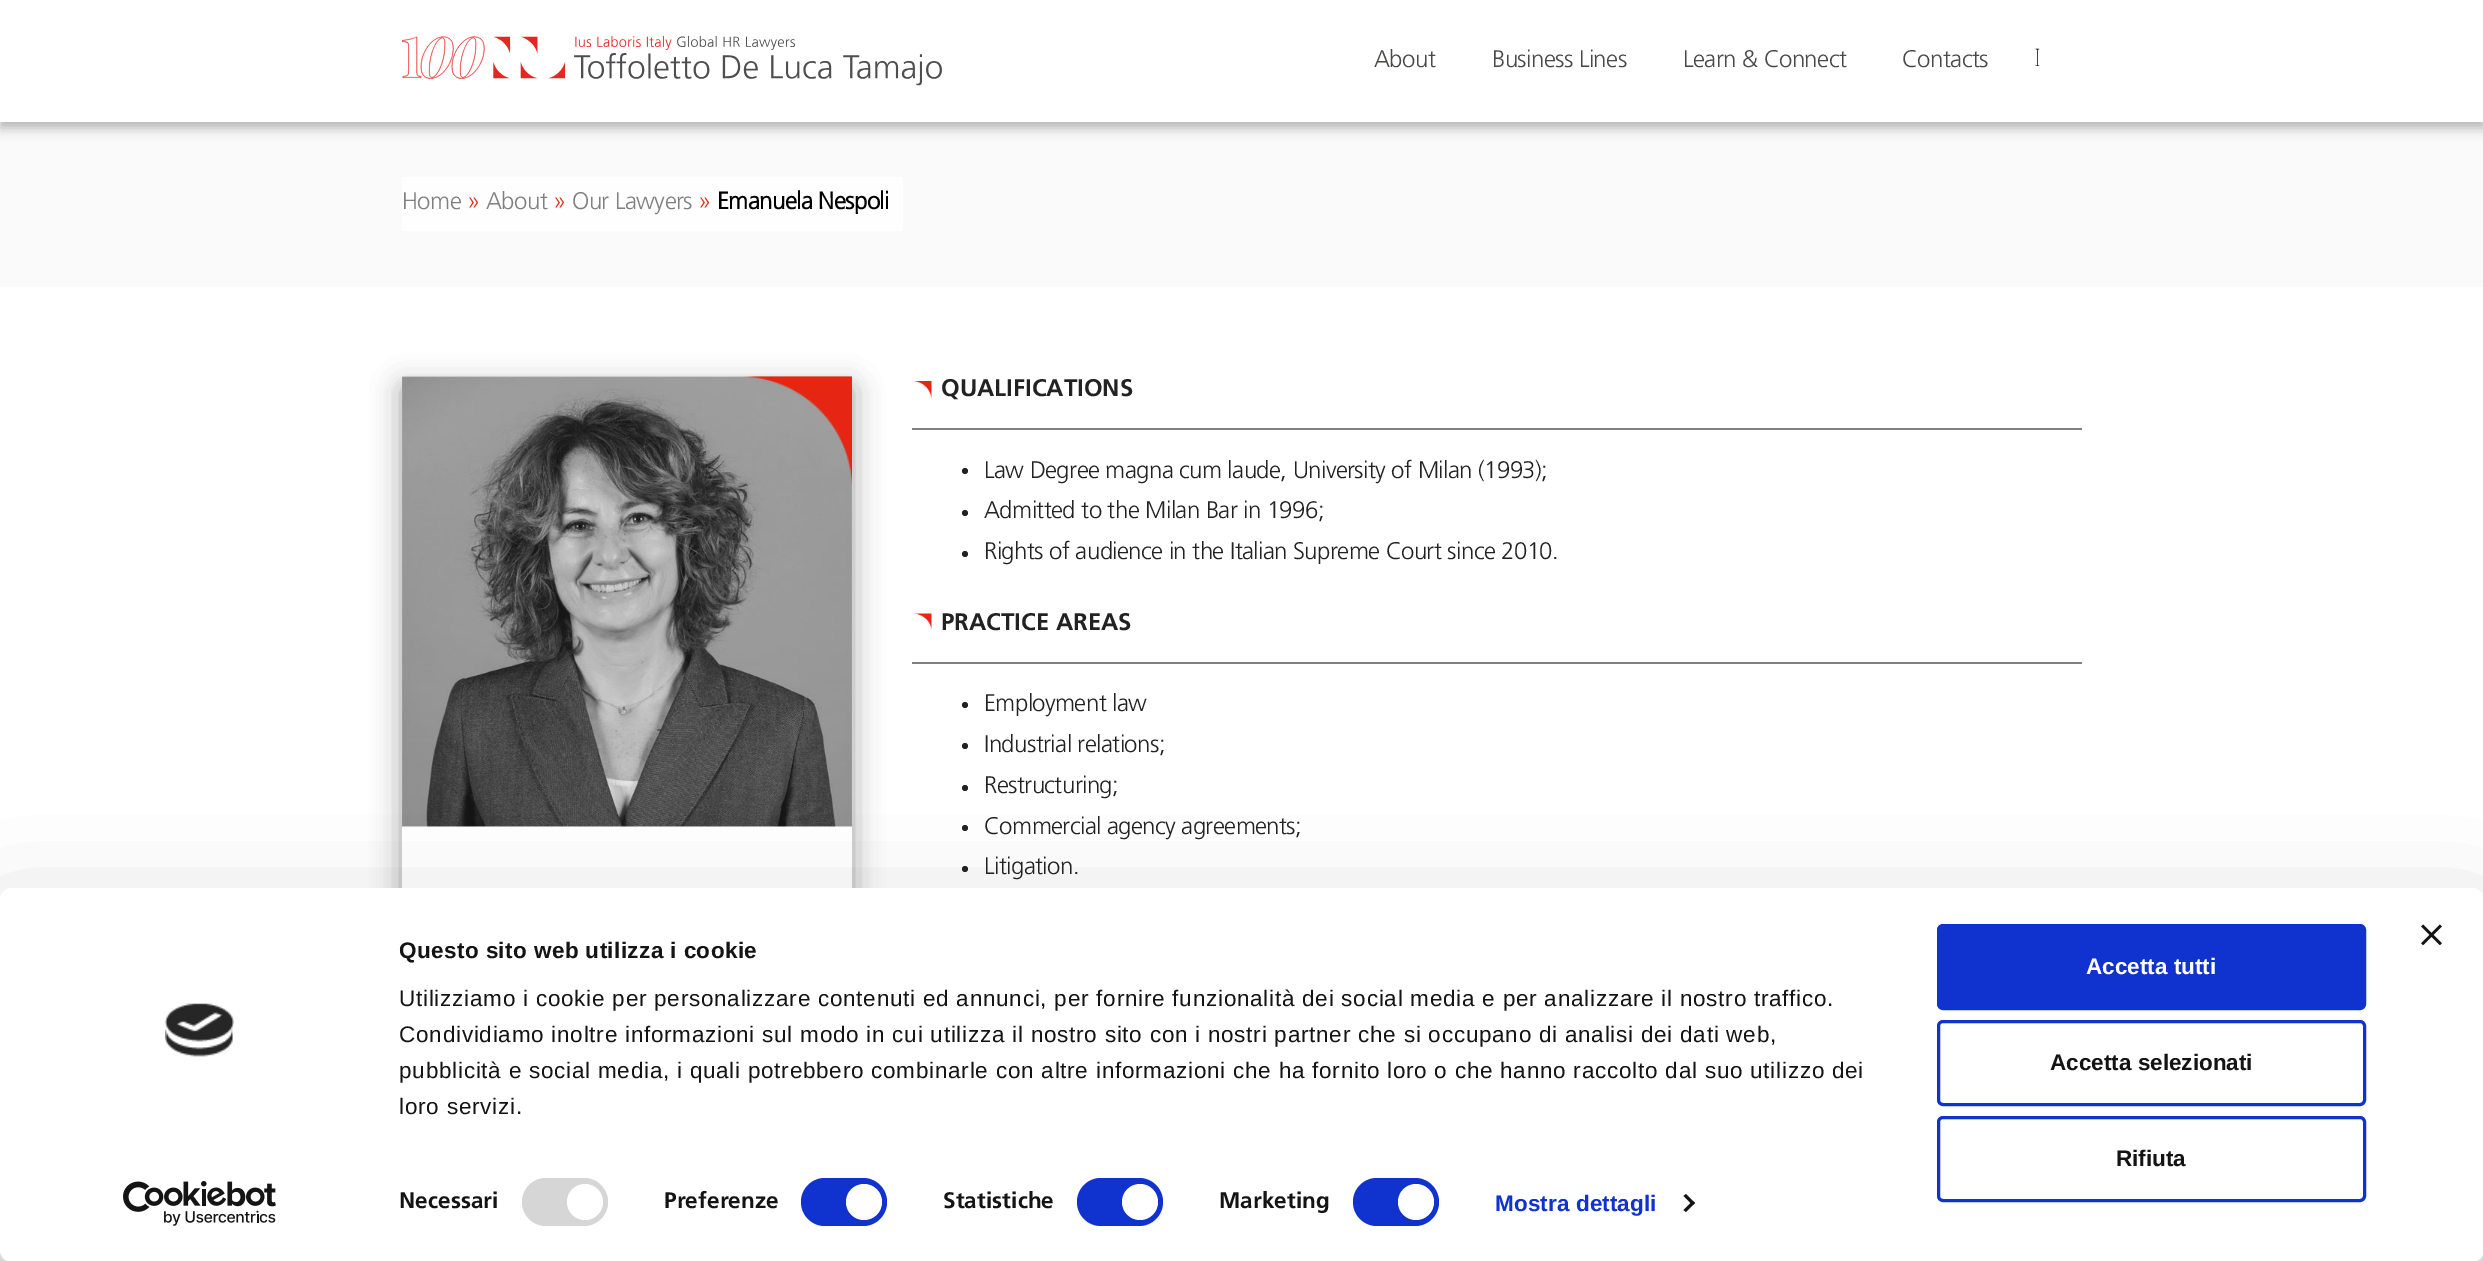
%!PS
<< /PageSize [2483 1261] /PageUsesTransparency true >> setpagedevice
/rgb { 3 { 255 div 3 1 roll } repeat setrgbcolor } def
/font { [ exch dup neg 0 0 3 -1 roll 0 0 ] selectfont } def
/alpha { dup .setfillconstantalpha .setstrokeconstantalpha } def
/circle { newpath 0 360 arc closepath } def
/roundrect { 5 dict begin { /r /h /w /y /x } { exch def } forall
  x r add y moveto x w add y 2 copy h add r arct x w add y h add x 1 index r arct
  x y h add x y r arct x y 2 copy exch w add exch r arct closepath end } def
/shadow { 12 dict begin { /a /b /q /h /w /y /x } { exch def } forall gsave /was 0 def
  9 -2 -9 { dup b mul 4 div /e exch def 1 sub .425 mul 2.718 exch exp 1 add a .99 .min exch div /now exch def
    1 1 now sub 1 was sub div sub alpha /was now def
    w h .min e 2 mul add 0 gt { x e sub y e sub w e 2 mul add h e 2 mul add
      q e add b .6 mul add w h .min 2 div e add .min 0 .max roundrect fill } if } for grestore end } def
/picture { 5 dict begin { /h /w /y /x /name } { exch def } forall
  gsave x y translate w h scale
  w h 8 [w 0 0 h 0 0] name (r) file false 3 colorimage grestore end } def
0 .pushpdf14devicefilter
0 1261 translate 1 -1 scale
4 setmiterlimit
255 255 255 rgb
0 0 2483 1261 rectfill
(img/1.rgb) 402 36 540 50 picture
250 250 250 rgb
0 122 2483 165 rectfill
gsave
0 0 moveto 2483 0 lineto 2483 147 lineto 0 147 lineto closepath 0 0 moveto 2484 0 lineto 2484 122 lineto 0 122 lineto closepath eoclip newpath
0 0 0 rgb
0 6 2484 122 0 6 0.29 shadow
grestore
254 254 254 rgb
402 177 501 54 rectfill
gsave
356 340 moveto 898 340 lineto 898 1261 lineto 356 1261 lineto closepath 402 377 moveto 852 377 lineto 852 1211 lineto 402 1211 lineto closepath eoclip newpath
0 0 0 rgb
402 386 450 834 0 15 0.19 shadow
grestore
gsave
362 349 moveto 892 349 lineto 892 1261 lineto 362 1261 lineto closepath 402 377 moveto 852 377 lineto 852 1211 lineto 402 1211 lineto closepath eoclip newpath
0 0 0 rgb
402 389 450 834 0 13 0.2 shadow
grestore
(img/2.rgb) 402 376 450 451 picture
(img/3.rgb) 743 376 109 110 picture
128 128 128 rgb
912 428 1170 2 rectfill
(img/4.rgb) 913 381 19 18 picture
34 34 34 rgb
965 471 3 circle fill
965 513 3 circle fill
965 554 3 circle fill
128 128 128 rgb
912 662 1170 2 rectfill
(img/5.rgb) 913 613 19 17 picture
34 34 34 rgb
965 705 3 circle fill
965 746 3 circle fill
965 788 3 circle fill
965 828 3 circle fill
965 869 3 circle fill
0 0 0 rgb
0 933 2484 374 12 52.5 0.3 shadow
255 255 255 rgb
0 888 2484 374 12 roundrect fill
(img/6.rgb) 2421 924 21 21 picture
(img/7.rgb) 165 1003 69 54 picture
(img/8.rgb) 123 1181 153 45 picture
214 214 214 rgb
522 1178 86 48 24 roundrect fill
255 255 255 rgb
585 1202 18 circle fill
16 50 207 rgb
801 1178 86 48 24 roundrect fill
255 255 255 rgb
864 1202 18 circle fill
16 50 207 rgb
1077 1178 86 48 24 roundrect fill
255 255 255 rgb
1140 1202 18 circle fill
16 50 207 rgb
1353 1178 86 48 24 roundrect fill
255 255 255 rgb
1416 1202 18 circle fill
20 20 20 rgb
1686 1194 moveto 1695 1203 lineto 1692.5 1205 lineto 1683.5 1196 lineto closepath fill
1692.5 1201 moveto 1695 1203 lineto 1686 1212 lineto 1683.5 1210 lineto closepath fill
16 50 207 rgb
1938.5 925.5 426 83 4.5 roundrect gsave fill grestore
3 setlinewidth
stroke
1938.5 1021.5 426 83 4.5 roundrect stroke
1938.5 1117.5 426 83 4.5 roundrect stroke
/Frutiger-Light 24 font
73 73 72 rgb
1374 67 moveto -0.6 0 (About) ashow
1492 67 moveto -0.6 0 (Business Lines) ashow
1683 67 moveto -0.6 0 (Learn & Connect) ashow
1902 67 moveto -0.6 0 (Contacts) ashow
/NotoSans-Thin 24 font
0 0 0 rgb
2034 66 moveto -0.6 0 (I) ashow
/Frutiger-Light 24 font
128 128 128 rgb
402 209 moveto -0.6 0 (Home) ashow
230 38 18 rgb
467 209 moveto -0.6 0 (») ashow
128 128 128 rgb
486 209 moveto -0.6 0 (About) ashow
230 38 18 rgb
553 209 moveto -0.6 0 (») ashow
128 128 128 rgb
572 209 moveto -0.6 0 (Our Lawyers) ashow
230 38 18 rgb
698 209 moveto -0.6 0 (») ashow
/Frutiger-Bold 24 font
0 0 0 rgb
717 209 moveto -0.6 0 (Emanuela Nespoli) ashow
/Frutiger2-Bold 24 font
34 34 34 rgb
941 396 moveto (QUALIFICATIONS) show
/Frutiger-Light 24 font
984 478 moveto -0.6 0 (Law Degree magna cum laude, University of Milan \(1993\);) ashow
984 518 moveto -0.6 0 (Admitted to the Milan Bar in 1996;) ashow
984 559 moveto -0.6 0 (Rights of audience in the Italian Supreme Court since 2010.) ashow
/Frutiger2-Bold 24 font
941 630 moveto (PRACTICE AREAS) show
/Frutiger-Light 24 font
984 711 moveto -0.6 0 (Employment law) ashow
984 752 moveto -0.6 0 (Industrial relations;) ashow
984 793 moveto -0.6 0 (Restructuring;) ashow
984 834 moveto -0.6 0 (Commercial agency agreements;) ashow
984 874 moveto -0.6 0 (Litigation.) ashow
/LiberationSans-Bold 22.5 font
20 20 20 rgb
399 958 moveto 0.4 0 (Questo sito web utilizza i cookie) ashow
/LiberationSans-Regular 22.5 font
399 1006 moveto 0.75 0 (Utilizziamo i cookie per personalizzare contenuti ed annunci, per fornire funzionalità dei social media e per analizzare il nostro traffico.) ashow
399 1042 moveto 0.75 0 (Condividiamo inoltre informazioni sul modo in cui utilizza il nostro sito con i nostri partner che si occupano di analisi dei dati web,) ashow
399 1078 moveto 0.75 0 (pubblicità e social media, i quali potrebbero combinarle con altre informazioni che ha fornito loro o che hanno raccolto dal suo utilizzo dei) ashow
399 1114 moveto 0.75 0 (loro servizi.) ashow
/Frutiger2-Bold 22.5 font
399 1208 moveto 0.1 0 (Necessari) ashow
664 1208 moveto 0.1 0 (Preferenze) ashow
943 1208 moveto 0.1 0 (Statistiche) ashow
1219 1208 moveto 0.1 0 (Marketing) ashow
/LiberationSans-Bold 22.5 font
16 50 207 rgb
1495 1211 moveto 0.1 0 (Mostra dettagli) ashow
255 255 255 rgb
2086 974 moveto (Accetta tutti) show
20 20 20 rgb
2050 1070 moveto (Accetta selezionati) show
2116 1166 moveto (Rifiuta) show
.poppdf14devicefilter showpage
